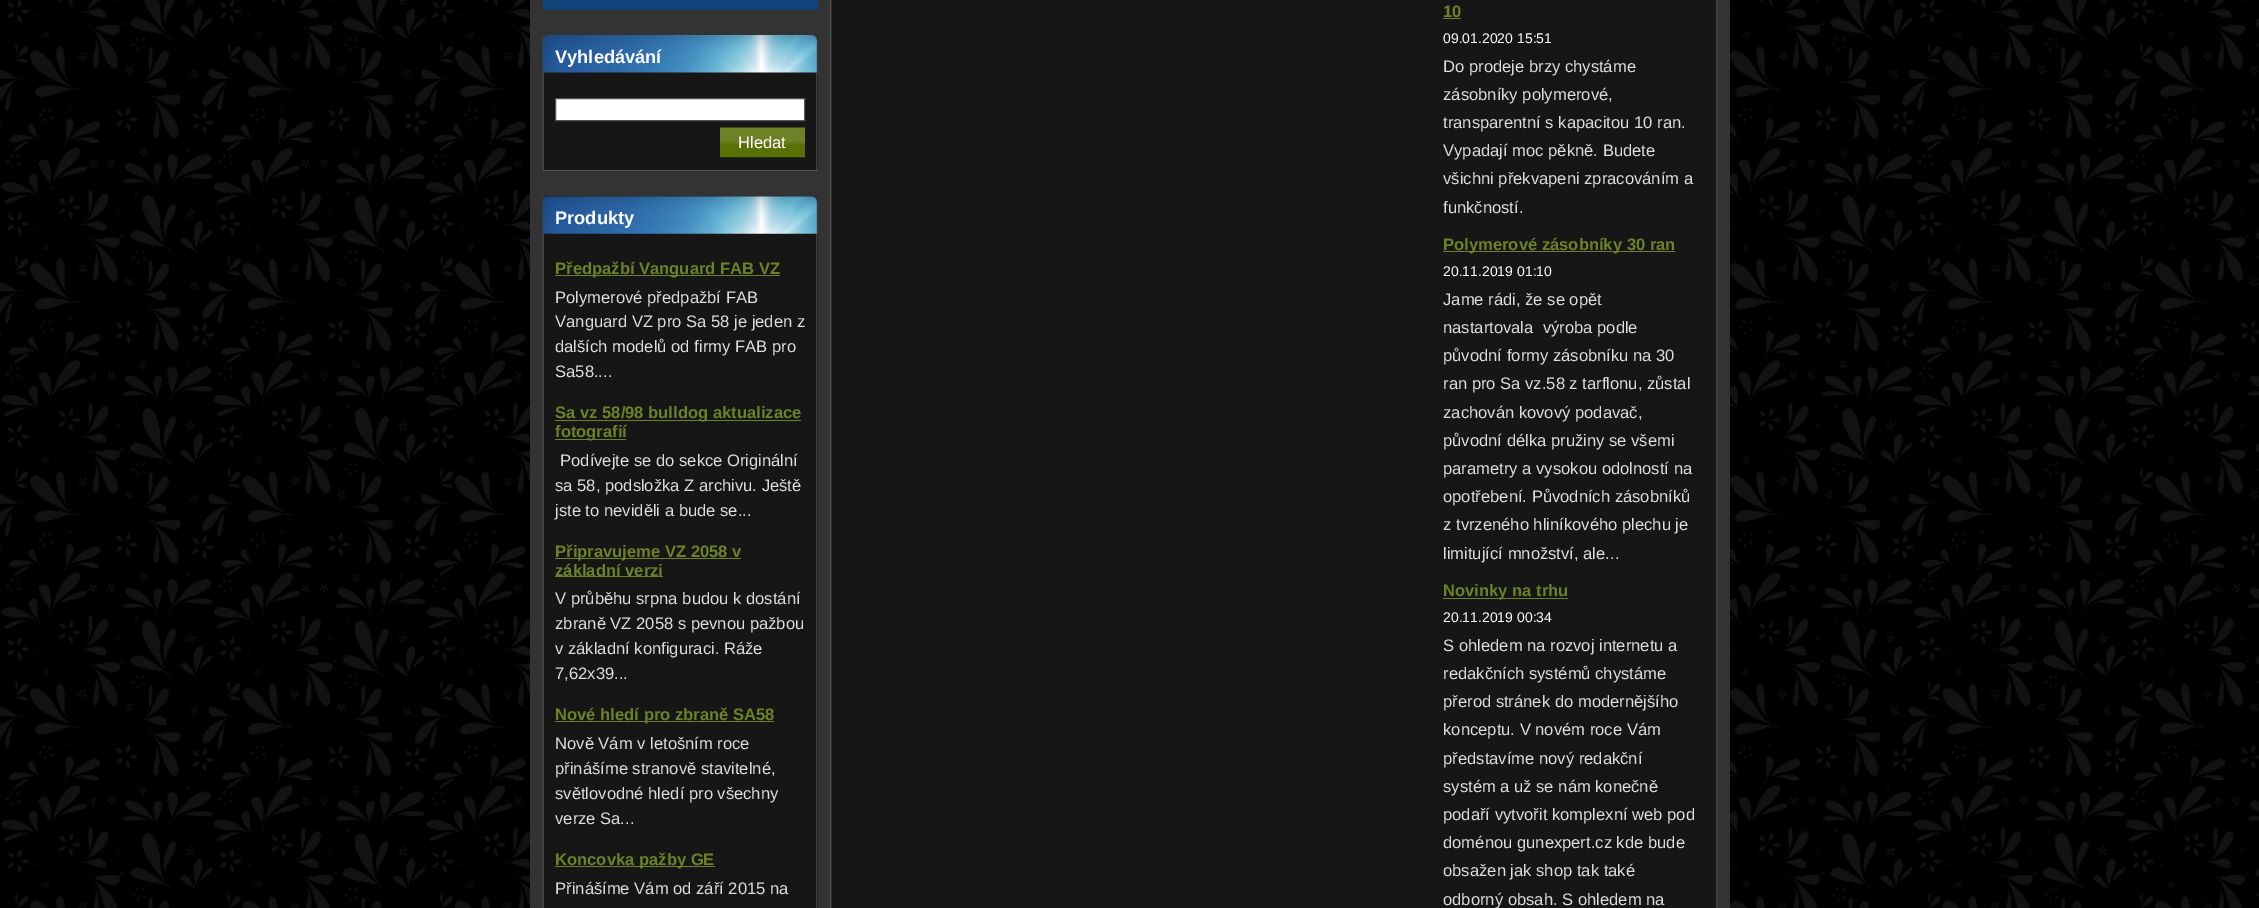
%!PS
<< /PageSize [2259 908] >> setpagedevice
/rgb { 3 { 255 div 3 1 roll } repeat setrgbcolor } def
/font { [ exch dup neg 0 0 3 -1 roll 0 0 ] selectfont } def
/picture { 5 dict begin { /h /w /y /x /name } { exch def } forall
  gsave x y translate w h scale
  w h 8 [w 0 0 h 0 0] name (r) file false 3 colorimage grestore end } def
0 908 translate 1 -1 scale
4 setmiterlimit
255 255 255 rgb
0 0 2259 908 rectfill
(img/1.rgb) 0 0 2259 908 picture
[
  [530 0 1200 908 51 51 51]
  [543 0 275 10 19 68 121]
  [817 35 1 135 22 22 22]
] { aload pop rgb rectfill } forall
(img/2.rgb) 542 35 276 137 picture
85 85 85 rgb
543 170 275 1 rectfill
(img/3.rgb) 542 35 276 38 picture
255 255 255 rgb
555.5 98.5 moveto 804.5 98.5 lineto 804.5 120.5 lineto 555.5 120.5 lineto closepath gsave fill grestore
85 85 85 rgb
stroke
(img/4.rgb) 720 127 85 31 picture
22 22 22 rgb
543 196 275 712 rectfill
(img/5.rgb) 542 196 276 712 picture
(img/6.rgb) 542 196 276 38 picture
[
  [555 275 225 1 109 130 39]
  [555 420 246 1 109 130 39]
  [555 439 71 1 109 130 39]
  [555 558 186 1 109 130 39]
  [555 576 108 1 109 130 39]
  [555 721 219 1 109 130 39]
  [555 866 160 1 109 130 39]
] { aload pop rgb rectfill } forall
(img/7.rgb) 830 0 888 908 picture
[
  [1443 18 18 1 109 130 39]
  [1443 251 232 1 109 130 39]
  [1443 598 125 1 109 130 39]
] { aload pop rgb rectfill } forall
/LiberationSans-Bold 18.25 font
255 255 255 rgb
555 63 moveto (Vyhledávání) show
/LiberationSans-Regular 16.6 font
738 148 moveto (Hledat) show
/LiberationSans-Bold 18.25 font
555 224 moveto (Produkty) show
/LiberationSans-Bold 16.6 font
109 130 39 rgb
555 274 moveto (Předpažbí Vanguard FAB VZ) show
/LiberationSans-Regular 16.6 font
221 221 221 rgb
[
  [(Polymerové předpažbí FAB) 555 303]
  [(Vanguard VZ pro Sa 58 je jeden z) 555 327]
  [(dalších modelů od firmy FAB pro) 555 352]
  [(Sa58....) 555 377]
] { aload pop moveto show } forall
/LiberationSans-Bold 16.6 font
109 130 39 rgb
555 418 moveto (Sa vz 58/98 bulldog aktualizace) show
555 437 moveto (fotografií) show
/LiberationSans-Regular 16.6 font
221 221 221 rgb
[
  [(Podívejte se do sekce Originální) 560 466]
  [(sa 58, podsložka Z archivu. Ještě) 555 491]
  [(jste to neviděli a bude se...) 555 516]
] { aload pop moveto show } forall
/LiberationSans-Bold 16.6 font
109 130 39 rgb
555 557 moveto (Připravujeme VZ 2058 v) show
555 576 moveto (základní verzi) show
/LiberationSans-Regular 16.6 font
221 221 221 rgb
[
  [(V průběhu srpna budou k dostání) 555 604]
  [(zbraně VZ 2058 s pevnou pažbou) 555 629]
  [(v základní konfiguraci. Ráže) 555 654]
  [(7,62x39...) 555 679]
] { aload pop moveto show } forall
/LiberationSans-Bold 16.6 font
109 130 39 rgb
555 720 moveto (Nové hledí pro zbraně SA58) show
/LiberationSans-Regular 16.6 font
221 221 221 rgb
[
  [(Nově Vám v letošním roce) 555 749]
  [(přinášíme stranově stavitelné,) 555 774]
  [(světlovodné hledí pro všechny) 555 799]
  [(verze Sa...) 555 824]
] { aload pop moveto show } forall
/LiberationSans-Bold 16.6 font
109 130 39 rgb
555 865 moveto (Koncovka pažby GE) show
/LiberationSans-Regular 16.6 font
221 221 221 rgb
555 894 moveto (Přinášíme Vám od září 2015 na) show
/LiberationSans-Bold 16.6 font
109 130 39 rgb
1443 17 moveto (10) show
/LiberationSans-Regular 14 font
255 255 255 rgb
1443 43 moveto (09.01.2020 15:51) show
/LiberationSans-Regular 16.6 font
221 221 221 rgb
[
  [(Do prodeje brzy chystáme) 1443 72]
  [(zásobníky polymerové,) 1443 100]
  [(transparentní s kapacitou 10 ran.) 1443 128]
  [(Vypadají moc pěkně. Budete) 1443 156]
  [(všichni překvapeni zpracováním a) 1443 184]
  [(funkčností.) 1443 213]
] { aload pop moveto show } forall
/LiberationSans-Bold 16.6 font
109 130 39 rgb
1443 250 moveto (Polymerové zásobníky 30 ran) show
/LiberationSans-Regular 14 font
255 255 255 rgb
1443 276 moveto (20.11.2019 01:10) show
/LiberationSans-Regular 16.6 font
221 221 221 rgb
[
  [(Jame rádi, že se opět) 1443 305]
  [(nastartovala  výroba podle) 1443 333]
  [(původní formy zásobníku na 30) 1443 361]
  [(ran pro Sa vz.58 z tarflonu, zůstal) 1443 389]
  [(zachován kovový podavač,) 1443 418]
  [(původní délka pružiny se všemi) 1443 446]
  [(parametry a vysokou odolností na) 1443 474]
  [(opotřebení. Původních zásobníků) 1443 502]
  [(z tvrzeného hliníkového plechu je) 1443 530]
  [(limitující množství, ale...) 1443 559]
] { aload pop moveto show } forall
/LiberationSans-Bold 16.6 font
109 130 39 rgb
1443 596 moveto (Novinky na trhu) show
/LiberationSans-Regular 14 font
255 255 255 rgb
1443 622 moveto (20.11.2019 00:34) show
/LiberationSans-Regular 16.6 font
221 221 221 rgb
[
  [(S ohledem na rozvoj internetu a) 1443 651]
  [(redakčních systémů chystáme) 1443 679]
  [(přerod stránek do modernějšího) 1443 707]
  [(konceptu. V novém roce Vám) 1443 735]
  [(představíme nový redakční) 1443 764]
  [(systém a už se nám konečně) 1443 792]
  [(podaří vytvořit komplexní web pod) 1443 820]
  [(doménou gunexpert.cz kde bude) 1443 848]
  [(obsažen jak shop tak také) 1443 876]
  [(odborný obsah. S ohledem na) 1443 905]
] { aload pop moveto show } forall
showpage
